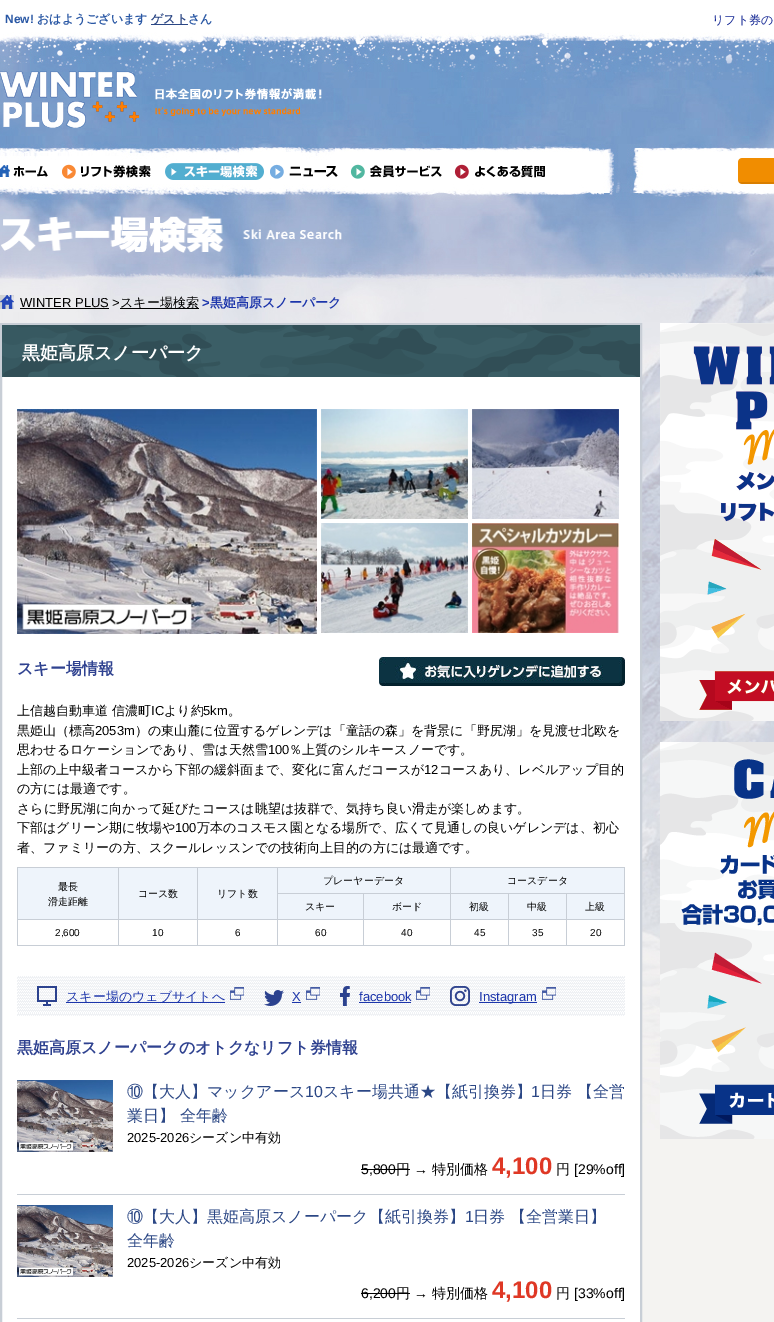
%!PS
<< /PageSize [774 1322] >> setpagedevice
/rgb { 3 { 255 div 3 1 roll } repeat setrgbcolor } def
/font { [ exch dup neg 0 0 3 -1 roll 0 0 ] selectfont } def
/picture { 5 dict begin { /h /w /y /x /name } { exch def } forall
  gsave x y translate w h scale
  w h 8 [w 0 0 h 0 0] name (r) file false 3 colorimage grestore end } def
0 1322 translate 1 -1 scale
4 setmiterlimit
244 243 241 rgb
0 0 774 1322 rectfill
(img/1.rgb) 0 0 774 1130 picture
43 71 133 rgb
151 24 37 1 rectfill
(img/2.rgb) 0 71 322 57 picture
(img/3.rgb) 0 165 48 12 picture
(img/4.rgb) 62 164 89 15 picture
(img/5.rgb) 165 163 99 17 picture
(img/6.rgb) 270 164 68 15 picture
(img/7.rgb) 350 164 92 15 picture
(img/8.rgb) 454 164 91 15 picture
(img/9.rgb) 738 158 36 26 picture
(img/10.rgb) 0 216 342 37 picture
(img/11.rgb) 0 295 14 14 picture
[
  [20 308 89 1 0 0 0]
  [120 308 79 1 0 0 0]
  [2 377 638 945 255 255 255]
] { aload pop rgb rectfill } forall
200 206 214 rgb
0.5 323.5 641 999 rectstroke
1.5 324.5 639 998 rectstroke
(img/12.rgb) 2 325 638 52 picture
(img/13.rgb) 17 409 300 225 picture
(img/14.rgb) 321 409 147 110 picture
(img/15.rgb) 472 409 147 110 picture
(img/16.rgb) 321 523 147 110 picture
(img/17.rgb) 472 523 147 110 picture
(img/18.rgb) 379 657 246 29 picture
[
  [278 868 172 25 238 244 251]
  [450 867 175 1 200 206 214]
  [566 893 59 1 200 206 214]
  [566 919 59 1 200 206 214]
  [624 919 1 27 200 206 214]
  [566 945 59 1 200 206 214]
  [566 919 1 27 200 206 214]
  [508 919 59 1 200 206 214]
  [566 893 1 27 200 206 214]
  [508 893 59 1 200 206 214]
  [508 945 59 1 200 206 214]
  [508 919 1 27 200 206 214]
  [450 919 59 1 200 206 214]
  [508 893 1 27 200 206 214]
  [450 893 59 1 200 206 214]
  [450 945 59 1 200 206 214]
  [450 919 1 27 200 206 214]
  [363 919 88 1 200 206 214]
  [450 893 1 27 200 206 214]
  [363 893 88 1 200 206 214]
  [450 867 1 27 200 206 214]
  [277 867 174 1 200 206 214]
  [363 945 88 1 200 206 214]
  [363 919 1 27 200 206 214]
  [277 919 87 1 200 206 214]
  [363 893 1 27 200 206 214]
  [277 893 87 1 200 206 214]
  [277 945 87 1 200 206 214]
  [277 919 1 27 200 206 214]
  [197 919 81 1 200 206 214]
  [277 893 1 27 200 206 214]
  [277 867 1 27 200 206 214]
  [451 868 173 25 238 244 251]
  [624 893 1 27 200 206 214]
  [624 867 1 27 200 206 214]
  [18 868 100 51 238 244 251]
  [197 867 81 1 200 206 214]
  [197 945 81 1 200 206 214]
  [197 919 1 27 200 206 214]
  [118 919 80 1 200 206 214]
  [197 867 1 53 200 206 214]
  [118 867 80 1 200 206 214]
  [118 945 80 1 200 206 214]
  [118 919 1 27 200 206 214]
  [17 919 102 1 200 206 214]
  [118 867 1 53 200 206 214]
  [17 867 102 1 200 206 214]
  [17 945 102 1 200 206 214]
  [17 919 1 27 200 206 214]
  [17 867 1 53 200 206 214]
  [119 868 78 51 238 244 251]
  [198 868 79 51 238 244 251]
  [278 894 85 25 238 244 251]
  [364 894 86 25 238 244 251]
  [451 894 57 25 238 244 251]
  [509 894 57 25 238 244 251]
  [567 894 57 25 238 244 251]
] { aload pop rgb rectfill } forall
(img/19.rgb) 17 976 608 40 picture
(img/20.rgb) 37 986 20 20 picture
28 53 171 rgb
66 1002 159 1 rectfill
(img/21.rgb) 230 987 14 13 picture
(img/22.rgb) 264 990 20 16 picture
292 1002 9 1 rectfill
(img/21.rgb) 306 987 14 13 picture
(img/23.rgb) 340 986 10 20 picture
359 1002 52 1 rectfill
(img/21.rgb) 416 987 14 13 picture
(img/24.rgb) 450 986 20 20 picture
479 1002 58 1 rectfill
(img/21.rgb) 542 987 14 13 picture
200 206 214 rgb
17 1194 608 1 rectfill
(img/25.rgb) 17 1080 96 72 picture
0 0 0 rgb
361 1169 49 1 rectfill
200 206 214 rgb
17 1318 608 1 rectfill
(img/26.rgb) 17 1205 96 72 picture
0 0 0 rgb
361 1293 49 1 rectfill
(img/27.rgb) 660 323 114 398 picture
(img/28.rgb) 660 742 114 397 picture
/LiberationSans-Bold 12 font
42 88 165 rgb
5 23 moveto (New!) show
/WenQuanYiZenHei-Bold 12 font
37 23 moveto (おはようございます) show
43 71 133 rgb
151 23 moveto (ゲスト) show
42 88 165 rgb
188 23 moveto (さん) show
/WenQuanYiZenHei-Medium 12 font
22 41 149 rgb
712 24 moveto (リフト券の) show
/LiberationSans-Regular 13 font
0 0 0 rgb
20 307 moveto (WINTER PLUS >) show
/WenQuanYiZenHei-Medium 13 font
120 307 moveto (スキー場検索) show
/LiberationSans-Bold 13 font
28 53 171 rgb
202 307 moveto (>) show
/WenQuanYiZenHei-Bold 13 font
210 307 moveto (黒姫高原スノーパーク) show
/WenQuanYiZenHei-Bold 18 font
255 255 255 rgb
22 359 moveto (黒姫高原スノーパーク) show
/WenQuanYiZenHei-Bold 16 font
47 66 144 rgb
17 674 moveto (スキー場情報) show
/WenQuanYiZenHei-Medium 13 font
0 0 0 rgb
17 715 moveto (上信越自動車道 信濃町) show
/LiberationSans-Regular 13 font
151 715 moveto (IC) show
/WenQuanYiZenHei-Medium 13 font
164 715 moveto (より約) show
/LiberationSans-Regular 13 font
203 715 moveto (5km) show
/WenQuanYiZenHei-Medium 13 font
228 715 moveto (。) show
17 735 moveto (黒姫山（標高) show
/LiberationSans-Regular 13 font
95 735 moveto (2053m) show
/WenQuanYiZenHei-Medium 13 font
135 735 moveto (）の東山麓に位置するゲレンデは「童話の森」を背景に「野尻湖」を見渡せ北欧を) show
17 754 moveto (思わせるロケーションであり、雪は天然雪) show
/LiberationSans-Regular 13 font
268 754 moveto (100) show
/WenQuanYiZenHei-Medium 13 font
289 754 moveto (％上質のシルキースノーです。) show
17 774 moveto (上部の上中級者コースから下部の緩斜面まで、変化に富んだコースが) show
/LiberationSans-Regular 13 font
424 774 moveto (12) show
/WenQuanYiZenHei-Medium 13 font
[
  [(コースあり、レベルアップ目的) 439 774]
  [(の方には最適です。) 17 793]
  [(さらに野尻湖に向かって延びたコースは眺望は抜群で、気持ち良い滑走が楽しめます。) 17 813]
  [(下部はグリーン期に牧場や) 17 832]
] { aload pop moveto show } forall
/LiberationSans-Regular 13 font
175 832 moveto (100) show
/WenQuanYiZenHei-Medium 13 font
197 832 moveto (万本のコスモス園となる場所で、広くて見通しの良いゲレンデは、初心) show
17 852 moveto (者、ファミリーの方、スクールレッスンでの技術向上目的の方には最適です。) show
/WenQuanYiZenHei-Medium 10 font
[
  [(プレーヤーデータ) 323 884]
  [(コースデータ) 507 884]
  [(最長) 58 890]
  [(滑走距離) 48 905]
  [(コース数) 138 897]
  [(リフト数) 217 897]
  [(スキー) 305 910]
  [(ボード) 392 910]
  [(初級) 469 910]
  [(中級) 527 910]
  [(上級) 585 910]
] { aload pop moveto show } forall
/LiberationSans-Regular 10 font
[
  [(2,600) 55 936]
  [(10) 152 936]
  [(6) 235 936]
  [(60) 315 936]
  [(40) 401 936]
  [(45) 474 936]
  [(35) 532 936]
  [(20) 590 936]
] { aload pop moveto show } forall
/WenQuanYiZenHei-Medium 13 font
28 53 171 rgb
66 1001 moveto (スキー場のウェブサイトへ) show
/LiberationSans-Regular 13 font
[
  [(X) 292 1001]
  [(facebook) 359 1001]
  [(Instagram) 479 1001]
] { aload pop moveto show } forall
/WenQuanYiZenHei-Bold 16 font
47 66 144 rgb
17 1053 moveto (黒姫高原スノーパークのオトクなリフト券情報) show
/WenQuanYiZenHei-Medium 16 font
43 71 133 rgb
127 1097 moveto (⑩【大人】マックアース) show
/LiberationSans-Regular 16 font
305 1097 moveto (10) show
/WenQuanYiZenHei-Medium 16 font
323 1097 moveto (スキー場共通★【紙引換券】) show
/LiberationSans-Regular 16 font
531 1097 moveto (1) show
/WenQuanYiZenHei-Medium 16 font
540 1097 moveto (日券 【全営) show
127 1121 moveto (業日】 全年齢) show
/LiberationSans-Regular 13 font
0 0 0 rgb
127 1142 moveto (2025-2026) show
/WenQuanYiZenHei-Medium 13 font
189 1142 moveto (シーズン中有効) show
/LiberationSans-Regular 14 font
361 1174 moveto (5,800) show
/WenQuanYiZenHei-Medium 14 font
396 1174 moveto (円) show
/LiberationSans-Regular 14 font
414 1174 moveto (→) show
/WenQuanYiZenHei-Medium 14 font
432 1174 moveto (特別価格) show
/LiberationSans-Bold 24 font
223 56 37 rgb
492 1174 moveto (4,100) show
/WenQuanYiZenHei-Medium 14 font
0 0 0 rgb
556 1174 moveto (円) show
/LiberationSans-Regular 14 font
574 1174 moveto ([29%off]) show
/WenQuanYiZenHei-Medium 16 font
43 71 133 rgb
127 1222 moveto (⑩【大人】黒姫高原スノーパーク【紙引換券】) show
/LiberationSans-Regular 16 font
465 1222 moveto (1) show
/WenQuanYiZenHei-Medium 16 font
473 1222 moveto (日券 【全営業日】) show
127 1246 moveto (全年齢) show
/LiberationSans-Regular 13 font
0 0 0 rgb
127 1267 moveto (2025-2026) show
/WenQuanYiZenHei-Medium 13 font
189 1267 moveto (シーズン中有効) show
/LiberationSans-Regular 14 font
361 1298 moveto (6,200) show
/WenQuanYiZenHei-Medium 14 font
396 1298 moveto (円) show
/LiberationSans-Regular 14 font
414 1298 moveto (→) show
/WenQuanYiZenHei-Medium 14 font
432 1298 moveto (特別価格) show
/LiberationSans-Bold 24 font
223 56 37 rgb
492 1298 moveto (4,100) show
/WenQuanYiZenHei-Medium 14 font
0 0 0 rgb
556 1298 moveto (円) show
/LiberationSans-Regular 14 font
574 1298 moveto ([33%off]) show
showpage
